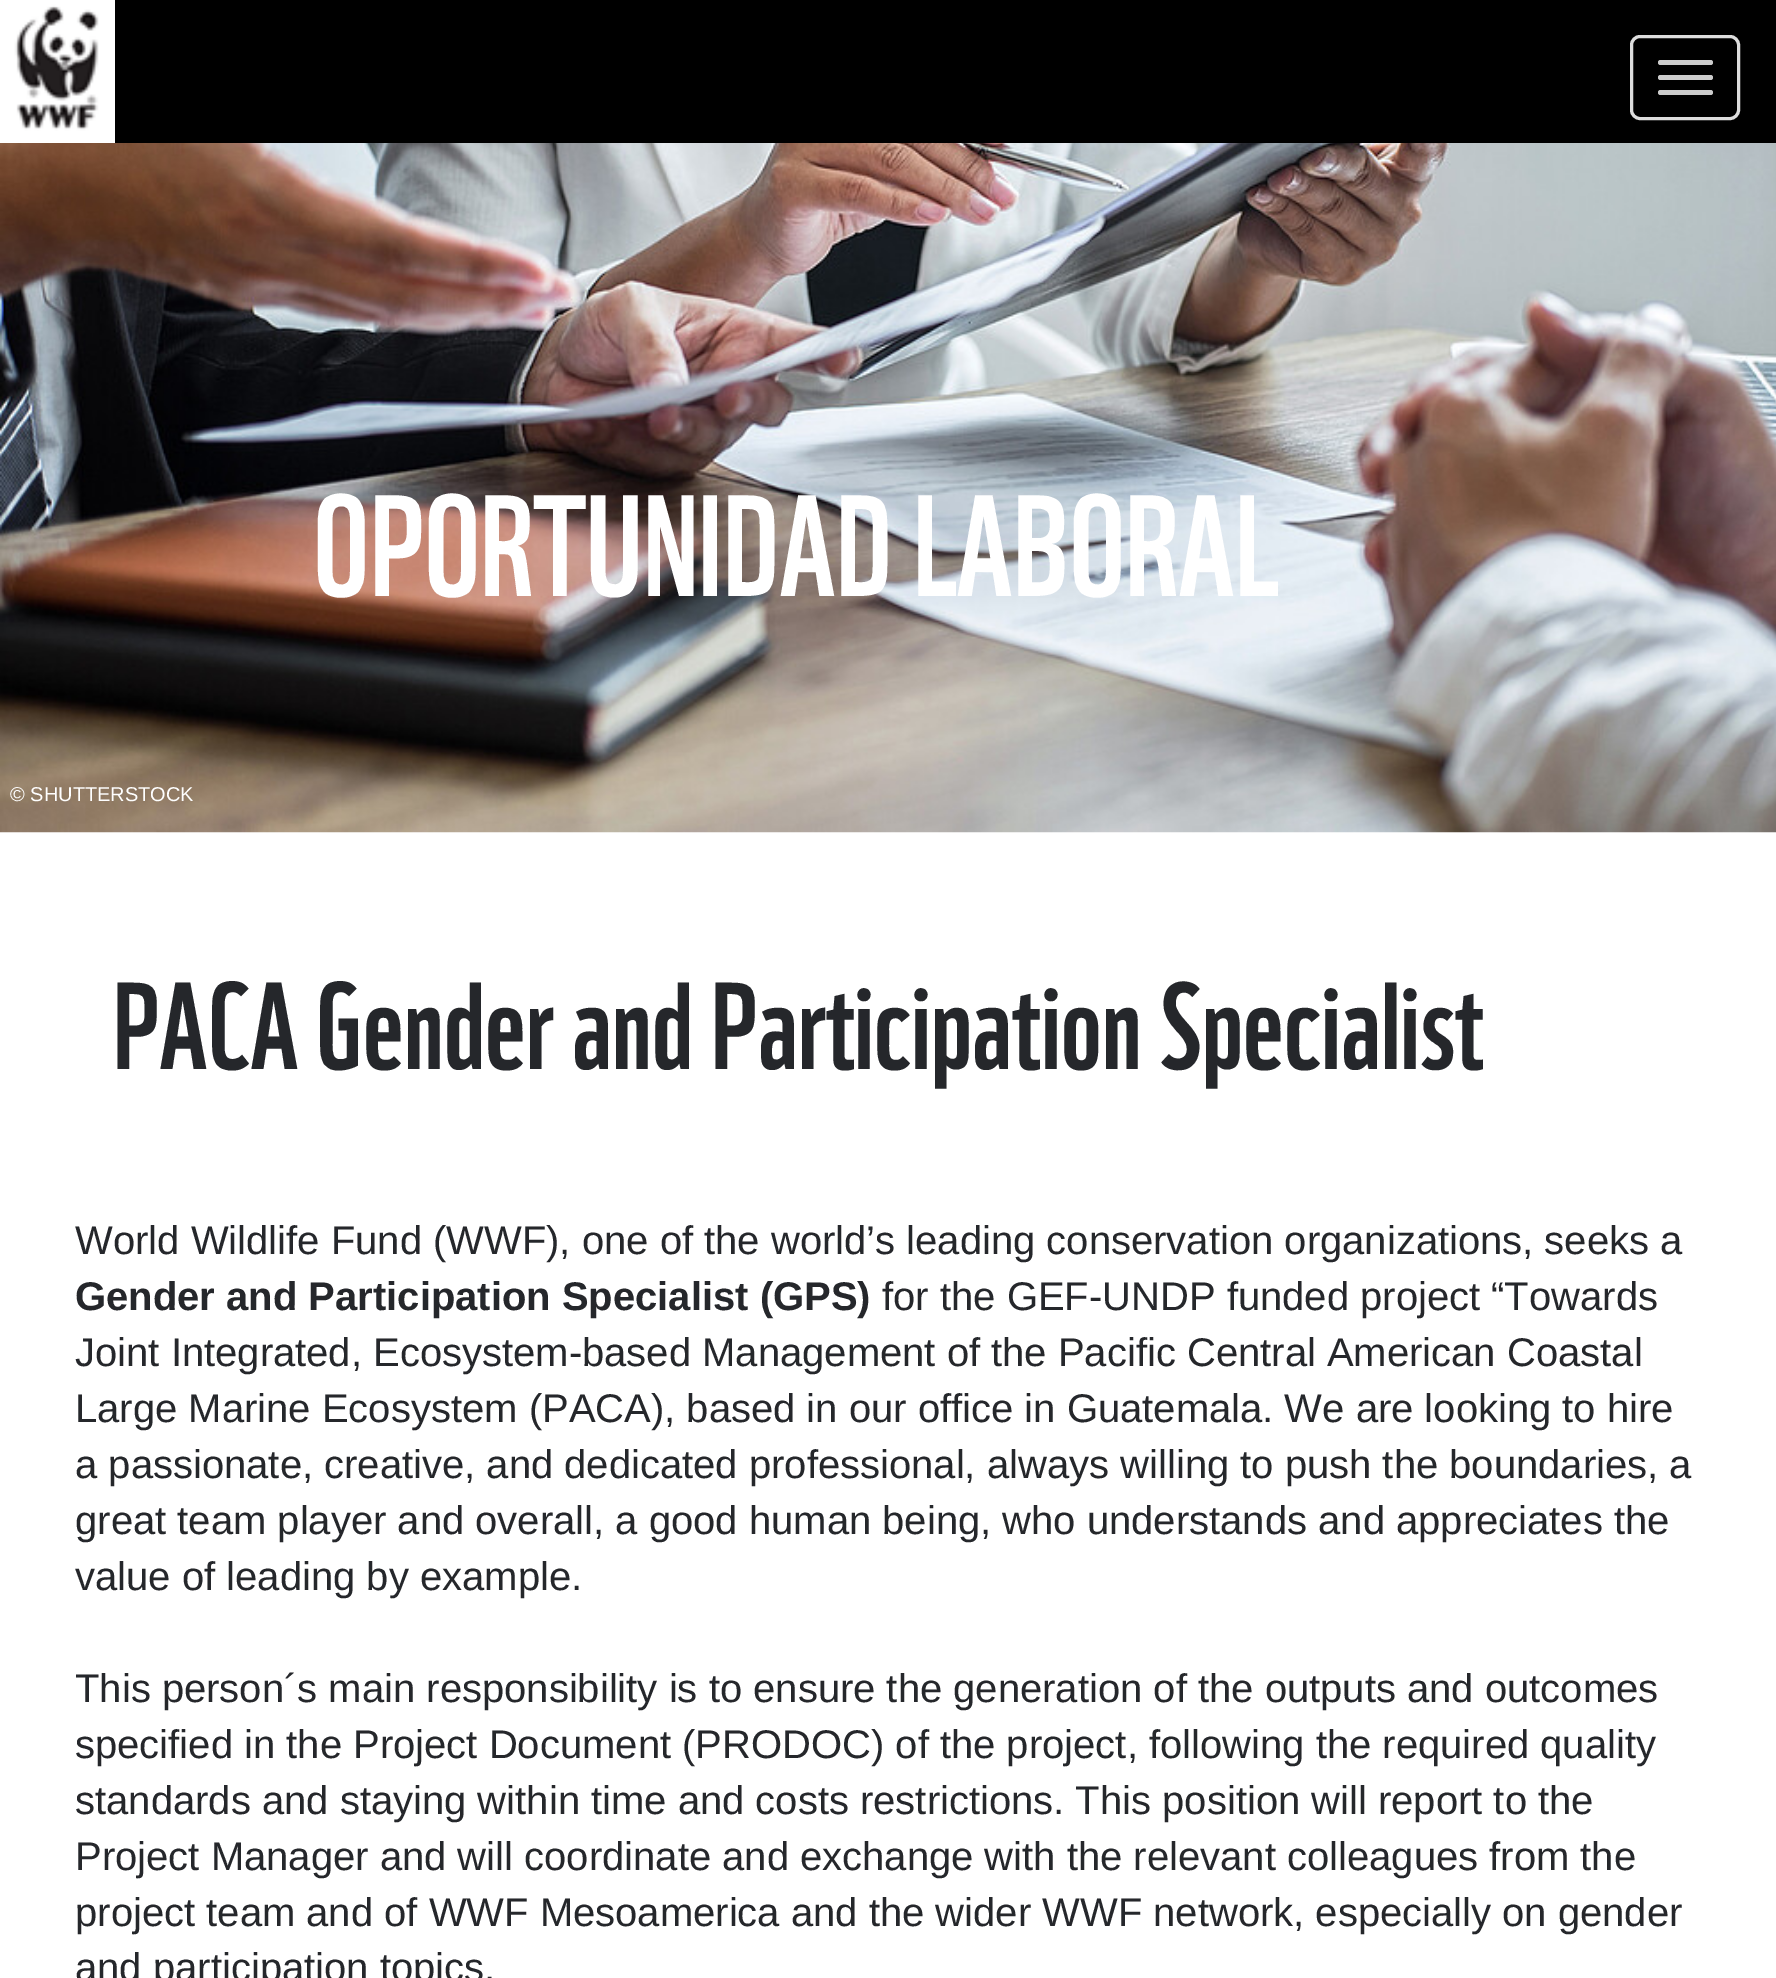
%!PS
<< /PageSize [1776 1978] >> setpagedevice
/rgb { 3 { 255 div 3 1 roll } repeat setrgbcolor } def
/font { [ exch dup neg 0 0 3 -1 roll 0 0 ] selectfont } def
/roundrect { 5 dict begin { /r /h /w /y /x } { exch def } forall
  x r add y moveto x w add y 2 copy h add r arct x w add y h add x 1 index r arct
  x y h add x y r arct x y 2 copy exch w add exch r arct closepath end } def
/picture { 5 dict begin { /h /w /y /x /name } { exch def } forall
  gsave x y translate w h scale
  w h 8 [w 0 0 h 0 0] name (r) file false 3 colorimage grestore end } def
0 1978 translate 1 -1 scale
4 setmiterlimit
255 255 255 rgb
0 0 1776 1978 rectfill
(img/1.rgb) 0 0 115 143 picture
0 0 0 rgb
115 0 1661 143 rectfill
221 221 221 rgb
3 setlinewidth
1631.5 36.5 107 82 8.5 roundrect stroke
204 204 204 rgb
1658 60 55 5 2.5 roundrect fill
1658 75 55 5 2.5 roundrect fill
1658 90 55 5 2.5 roundrect fill
(img/2.rgb) 0 143 1776 690 picture
/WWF-Regular 140 font
255 255 255 rgb
313 596 moveto (OPORTUNIDAD LABORAL) show
/LiberationSans-Regular 20 font
10 801 moveto (© SHUTTERSTOCK) show
/WWF-Regular 120 font
37 39 43 rgb
113 1069 moveto (PACA Gender and Participation Specialist) show
/LiberationSans-Regular 40 font
75 1254 moveto (World Wildlife Fund \(WWF\), one of the world’s leading conservation organizations, seeks a) show
/LiberationSans-Bold 40 font
75 1310 moveto (Gender and Participation Specialist \(GPS\)) show
/LiberationSans-Regular 40 font
[
  [(for the GEF-UNDP funded project “Towards) 882 1310]
  [(Joint Integrated, Ecosystem-based Management of the Pacific Central American Coastal) 75 1366]
  [(Large Marine Ecosystem \(PACA\), based in our office in Guatemala. We are looking to hire) 75 1422]
  [(a passionate, creative, and dedicated professional, always willing to push the boundaries, a) 75 1478]
  [(great team player and overall, a good human being, who understands and appreciates the) 75 1534]
  [(value of leading by example.) 75 1590]
  [(This person´s main responsibility is to ensure the generation of the outputs and outcomes) 75 1702]
  [(specified in the Project Document \(PRODOC\) of the project, following the required quality) 75 1758]
  [(standards and staying within time and costs restrictions. This position will report to the) 75 1814]
  [(Project Manager and will coordinate and exchange with the relevant colleagues from the) 75 1870]
  [(project team and of WWF Mesoamerica and the wider WWF network, especially on gender) 75 1926]
  [(and participation topics.) 75 1981]
] { aload pop moveto show } forall
showpage
